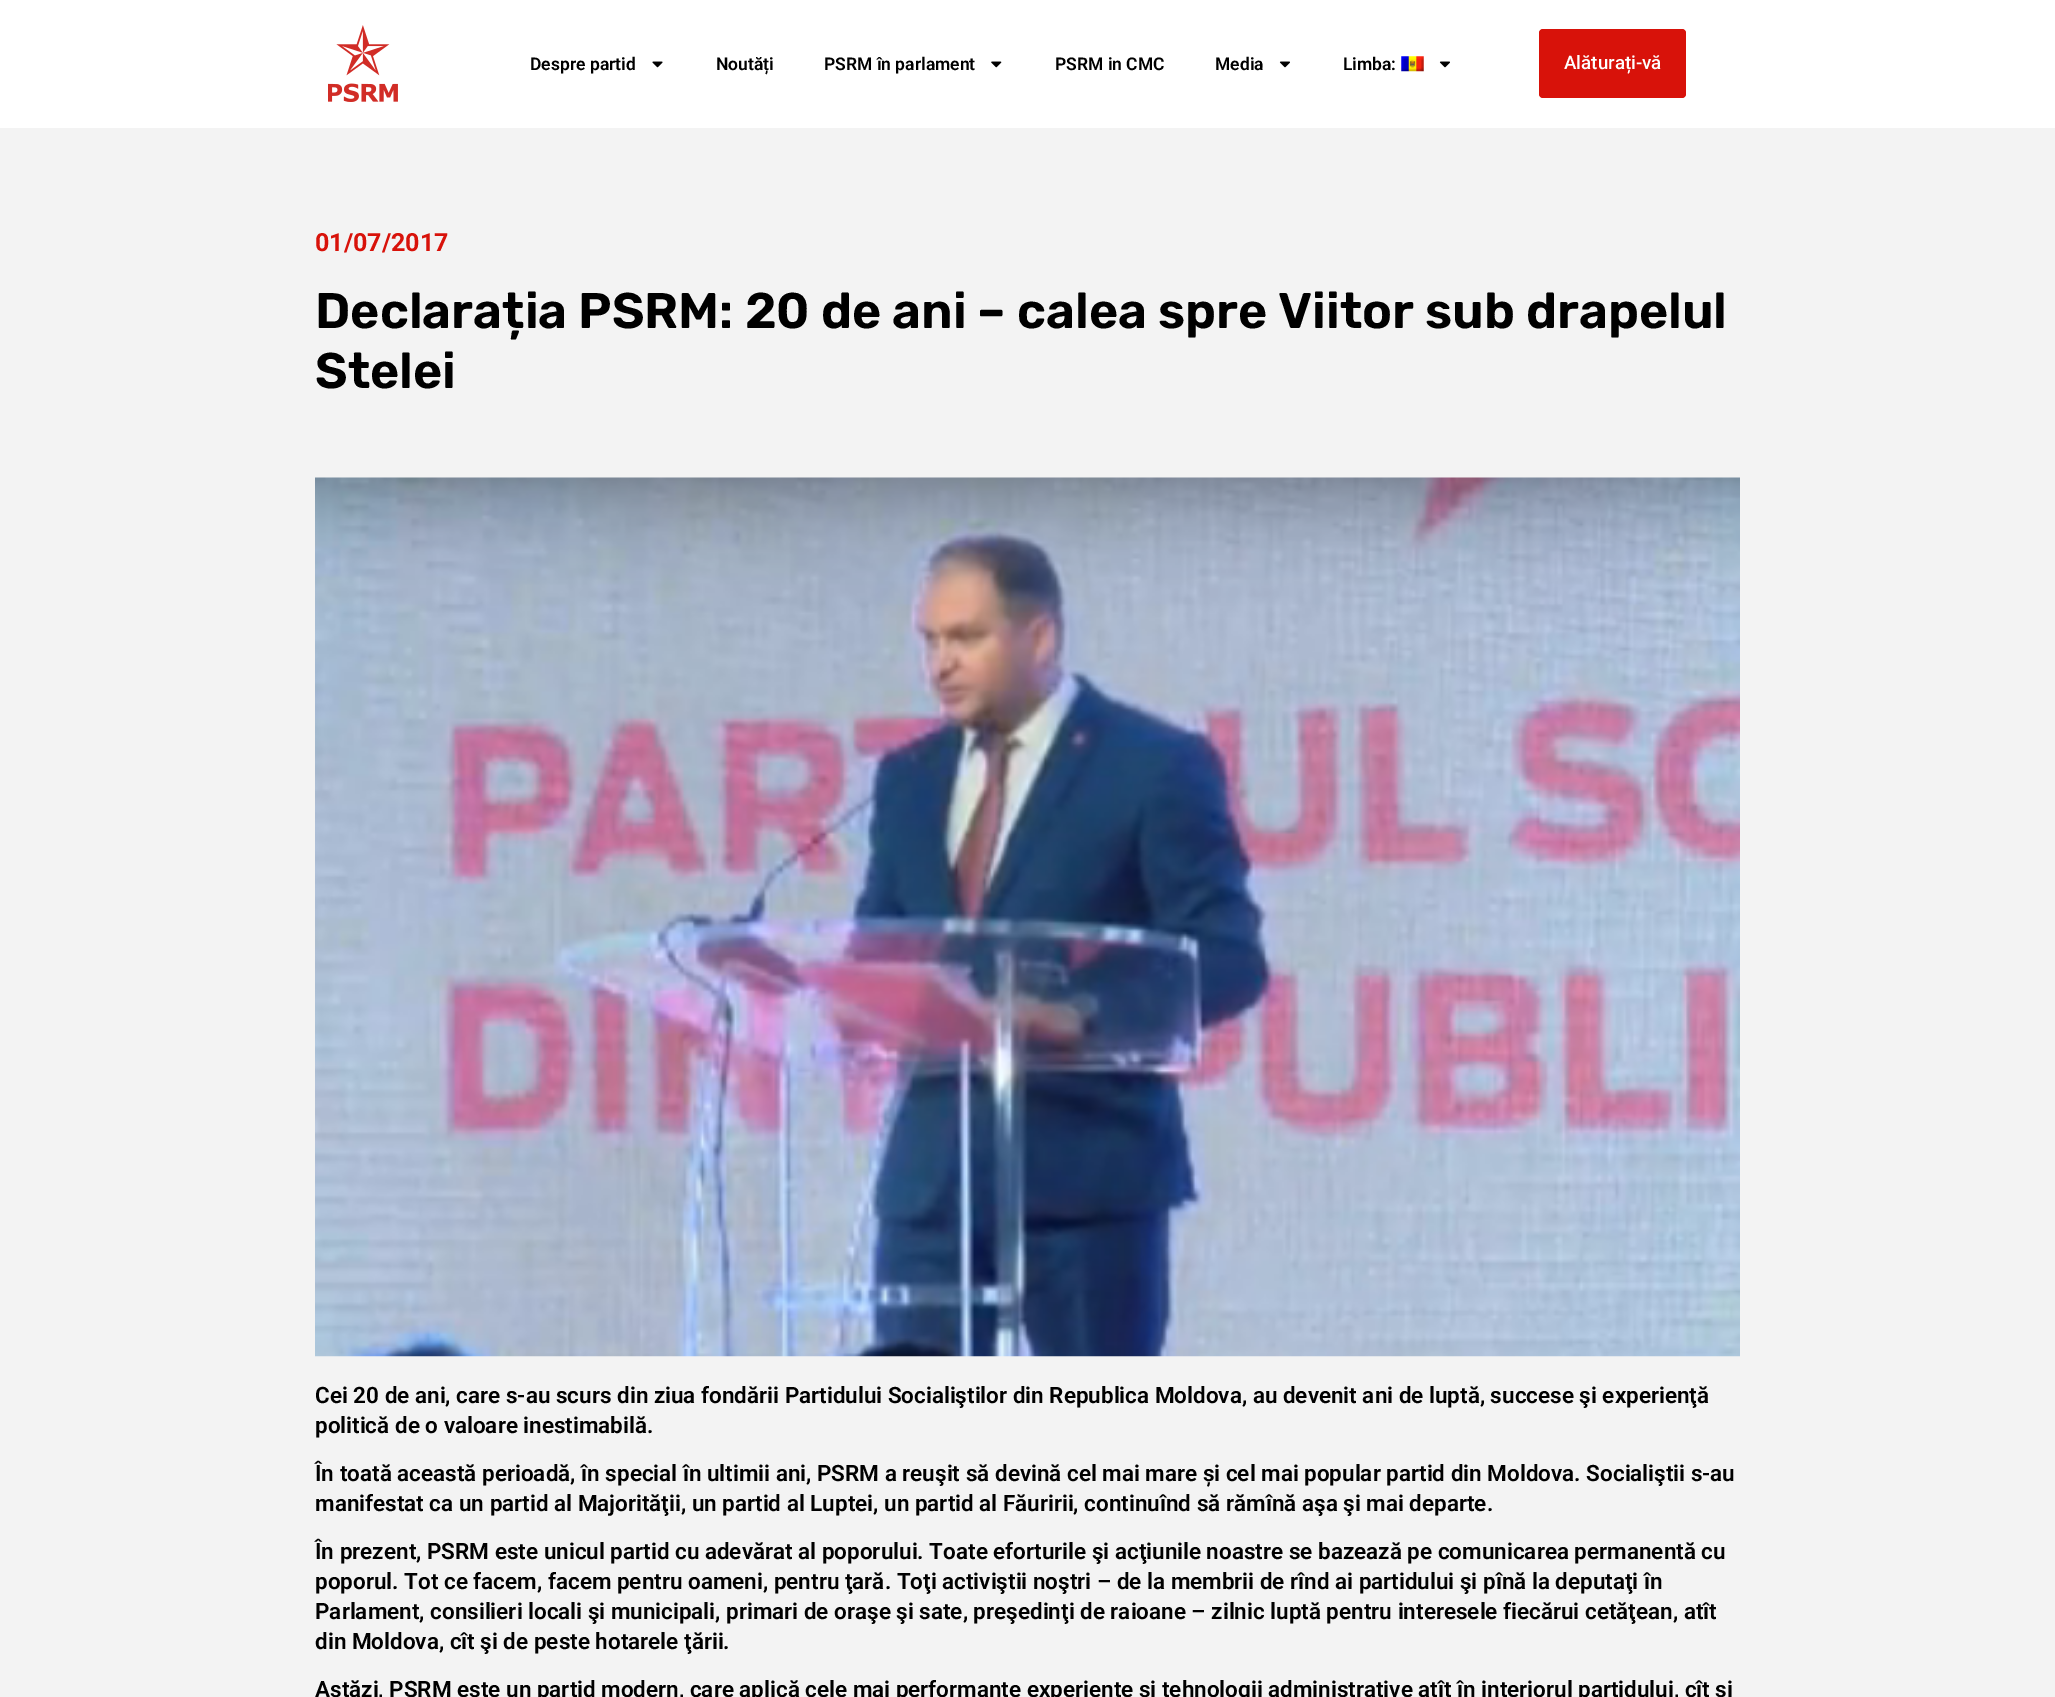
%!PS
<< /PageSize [2055 1697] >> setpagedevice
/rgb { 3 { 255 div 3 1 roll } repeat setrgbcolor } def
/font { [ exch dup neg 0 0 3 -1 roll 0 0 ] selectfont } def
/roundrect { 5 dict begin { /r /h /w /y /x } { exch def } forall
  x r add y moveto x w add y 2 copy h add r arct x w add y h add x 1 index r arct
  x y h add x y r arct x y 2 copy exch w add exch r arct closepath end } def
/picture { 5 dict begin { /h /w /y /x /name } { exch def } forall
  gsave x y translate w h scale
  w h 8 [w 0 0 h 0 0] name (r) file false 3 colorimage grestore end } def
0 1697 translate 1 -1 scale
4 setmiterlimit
255 255 255 rgb
0 0 2055 1697 rectfill
(img/1.rgb) 328 25 70 77 picture
(img/2.rgb) 652 61 11 7 picture
(img/3.rgb) 991 61 11 7 picture
(img/4.rgb) 1279 61 11 7 picture
(img/5.rgb) 1401 56 23 16 picture
(img/4.rgb) 1439 61 11 7 picture
216 18 10 rgb
1539 29 147 69 4 roundrect fill
243 243 243 rgb
0 128 2055 1569 rectfill
(img/6.rgb) 315 477 1425 880 picture
/Roboto-SemiBold 17.5 font
0 0 0 rgb
[
  [(Despre partid) 530 70]
  [(Noutăți) 716 70]
  [(PSRM în parlament) 824 70]
  [(PSRM in CMC) 1055 70]
  [(Media) 1215 70]
  [(Limba:) 1343 70]
] { aload pop moveto show } forall
/Roboto-Medium 18.75 font
255 255 255 rgb
1564 69 moveto (Alăturați-vă) show
/Roboto-Bold 25 font
216 18 10 rgb
315 251 moveto (01/07/2017) show
/Rubik-SemiBold 50 font
0 0 0 rgb
315 328 moveto (Declarația PSRM: 20 de ani – calea spre Viitor sub drapelul) show
315 388 moveto (Stelei) show
/Roboto-SemiBold 22.5 font
[
  [(Cei 20 de ani, care s-au scurs din ziua fondării Partidului Socialiştilor din Republica Moldova, au devenit ani de luptă, succese şi experienţă) 315 1403]
  [(politică de o valoare inestimabilă.) 315 1433]
  [(În toată această perioadă, în special în ultimii ani, PSRM a reuşit să devină cel mai mare și cel mai popular partid din Moldova. Socialiştii s-au) 315 1481]
  [(manifestat ca un partid al Majorităţii, un partid al Luptei, un partid al Făuririi, continuînd să rămînă aşa şi mai departe.) 315 1511]
  [(În prezent, PSRM este unicul partid cu adevărat al poporului. Toate eforturile şi acţiunile noastre se bazează pe comunicarea permanentă cu) 315 1559]
  [(poporul. Tot ce facem, facem pentru oameni, pentru ţară. Toţi activiştii noştri – de la membrii de rînd ai partidului şi pînă la deputaţi în) 315 1589]
  [(Parlament, consilieri locali şi municipali, primari de oraşe şi sate, preşedinţi de raioane – zilnic luptă pentru interesele fiecărui cetăţean, atît) 315 1619]
  [(din Moldova, cît şi de peste hotarele ţării.) 315 1649]
  [(Astăzi, PSRM este un partid modern, care aplică cele mai performante experienţe şi tehnologii administrative atît în interiorul partidului, cît şi) 315 1697]
] { aload pop moveto show } forall
showpage
